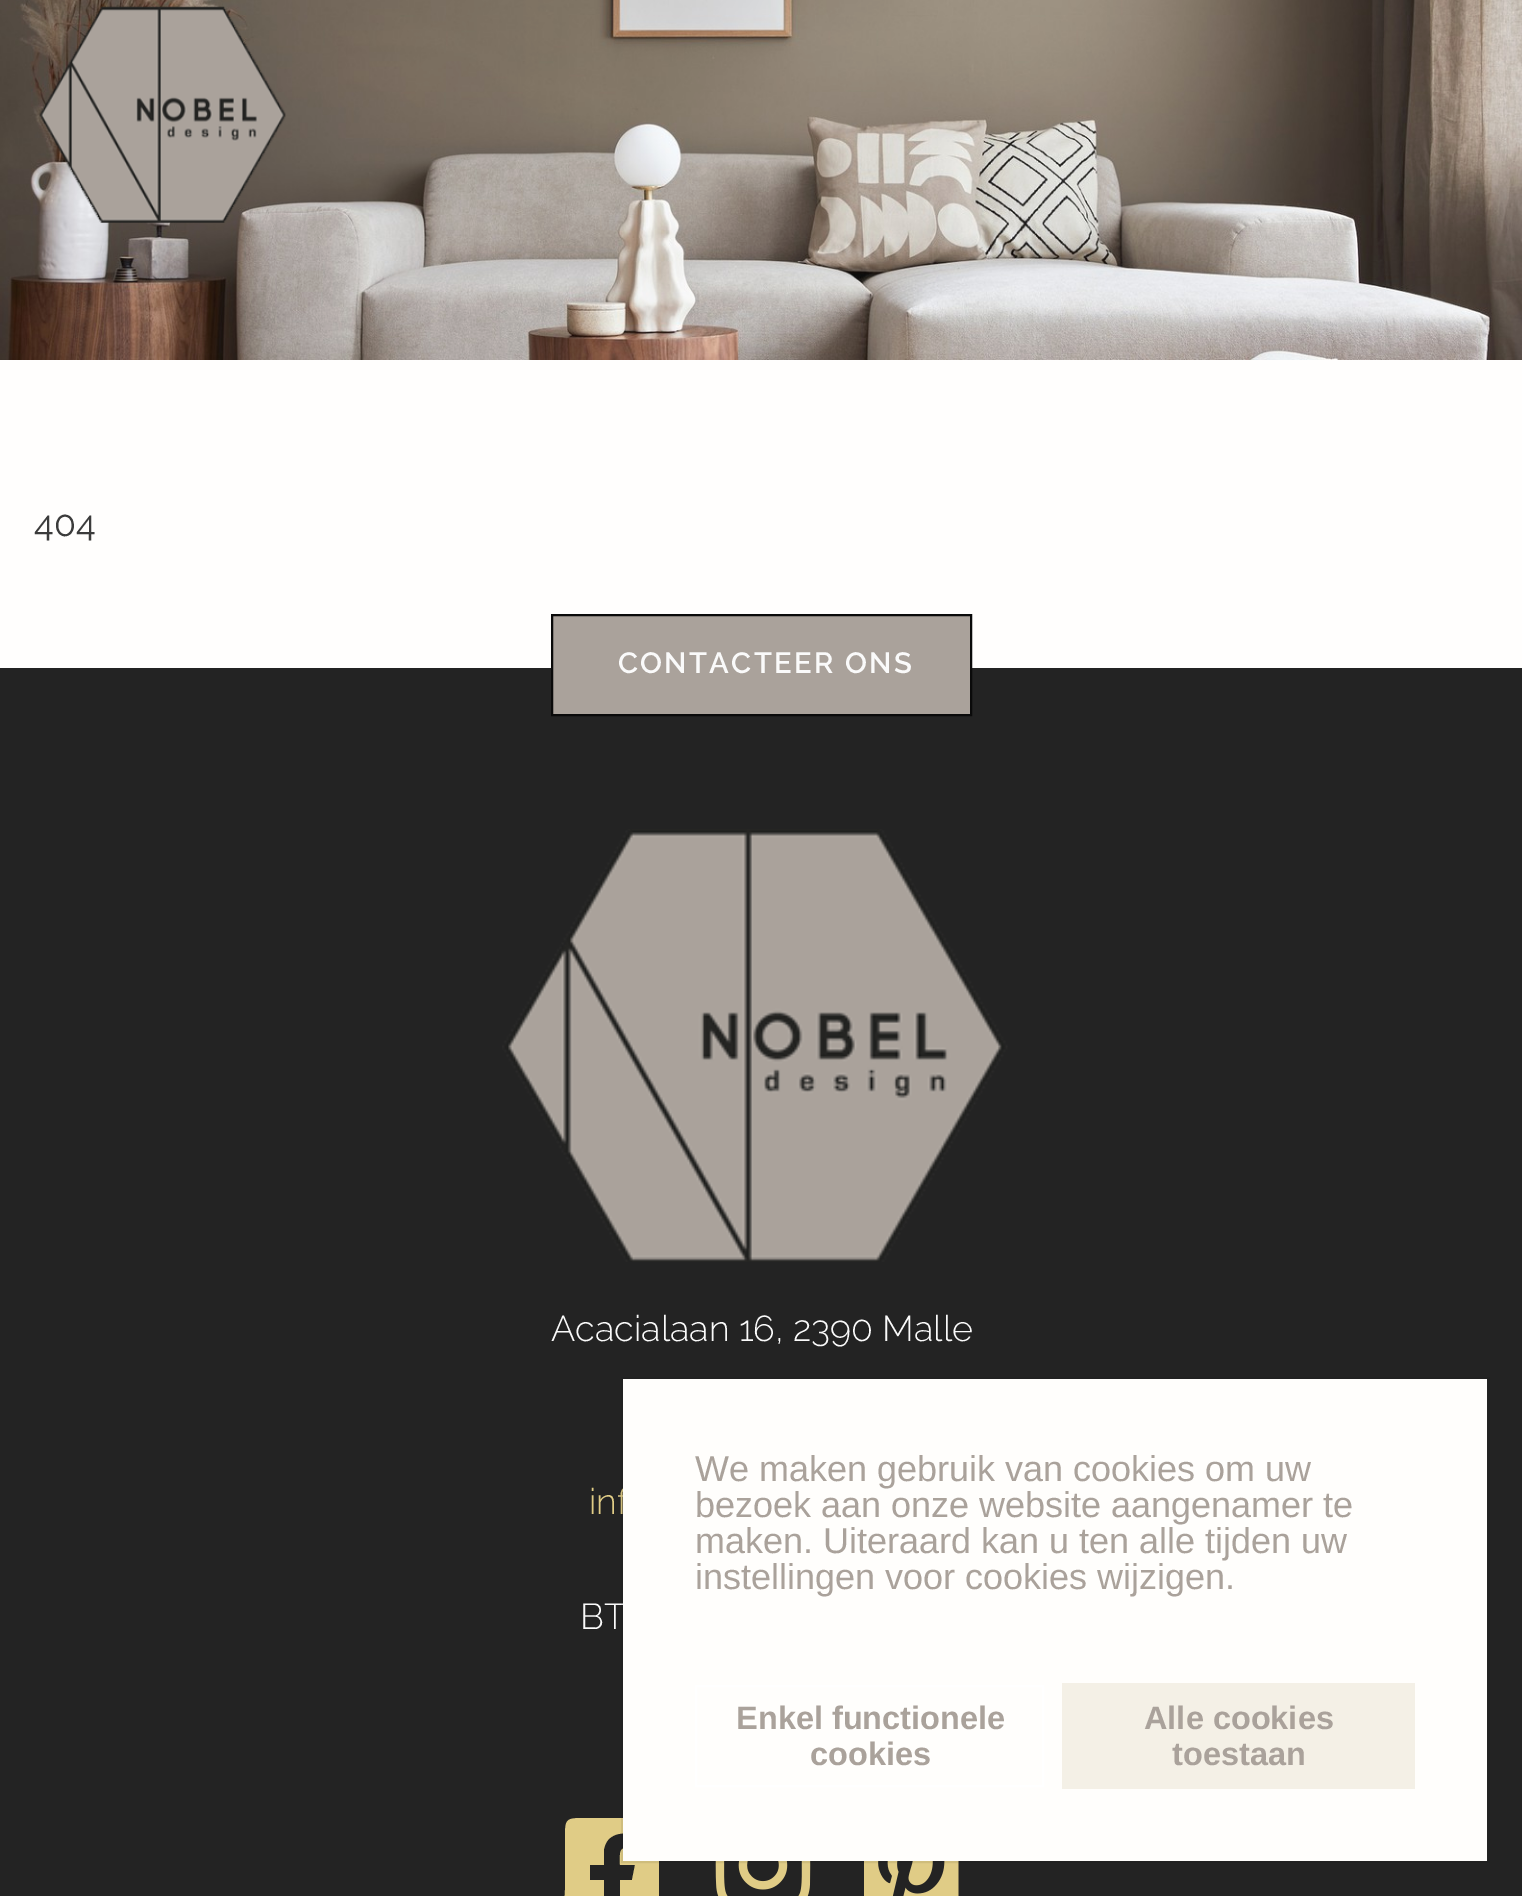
%!PS
<< /PageSize [1522 1896] /PageUsesTransparency true >> setpagedevice
/rgb { 3 { 255 div 3 1 roll } repeat setrgbcolor } def
/font { [ exch dup neg 0 0 3 -1 roll 0 0 ] selectfont } def
/alpha { dup .setfillconstantalpha .setstrokeconstantalpha } def
/picture { 5 dict begin { /h /w /y /x /name } { exch def } forall
  gsave x y translate w h scale
  w h 8 [w 0 0 h 0 0] name (r) file false 3 colorimage grestore end } def
0 .pushpdf14devicefilter
0 1896 translate 1 -1 scale
4 setmiterlimit
255 254 253 rgb
0 0 1522 1896 rectfill
(img/2.rgb) 0 0 1522 360 picture
(img/1.rgb) 39 6 247 217 picture
35 35 35 rgb
0 668 1522 1228 rectfill
170 162 155 rgb
552 615 moveto 971 615 lineto 971 715 lineto 552 715 lineto closepath gsave fill grestore
10 10 10 rgb
2 setlinewidth
stroke
(img/3.rgb) 502 829 506 433 picture
224 204 134 rgb
649 1818 moveto 662 1818 659 1833 659 1840 curveto 659 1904 lineto 657 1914 647 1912 639 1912 curveto 620 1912 lineto 620 1880 lineto 632 1880 lineto 635 1865 lineto 620 1865 lineto 620 1850 618 1847 635 1847 curveto 635 1834 lineto 622 1832 607 1833 604 1849 curveto 604 1865 lineto 590 1865 lineto 590 1880 lineto 604 1880 lineto 604 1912 lineto 573 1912 lineto 562 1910 565 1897 565 1890 curveto 565 1840 lineto 565 1818 565 1818 587 1818 curveto closepath fill
(img/4.rgb) 715 1861 96 35 picture
(img/5.rgb) 864 1861 95 35 picture
/Raleway-Regular 36 font
59 59 59 rgb
34 536 moveto (404) show
/Raleway-SemiBold 29.25 font
250 250 250 rgb
618 673 moveto 2.25 0 (CONTACTEER ONS) ashow
/Raleway-Light 36 font
551 1341 moveto (Acacialaan 16, 2390 Malle) show
224 204 134 rgb
589 1514 moveto (inf) show
250 250 250 rgb
580 1629 moveto (BT) show
0.08 alpha
10 10 10 rgb
622 1378 867 484 rectstroke
1 alpha
255 254 252 rgb
623 1379 864 482 rectfill
/LiberationSans-Regular 36 font
170 162 155 rgb
[
  [(We maken gebruik van cookies om uw) 695 1481]
  [(bezoek aan onze website aangenamer te) 695 1517]
  [(maken. Uiteraard kan u ten alle tijden uw) 695 1553]
  [(instellingen voor cookies wijzigen.) 695 1589]
] { aload pop moveto show } forall
255 255 255 rgb
696 1686 347 100 rectstroke
/LiberationSans-Bold 32.5 font
170 162 155 rgb
736 1729 moveto (Enkel functionele) show
810 1765 moveto (cookies) show
244 240 230 rgb
1062 1683 353 106 rectfill
170 162 155 rgb
1144 1729 moveto (Alle cookies) show
1172 1765 moveto (toestaan) show
.poppdf14devicefilter showpage
